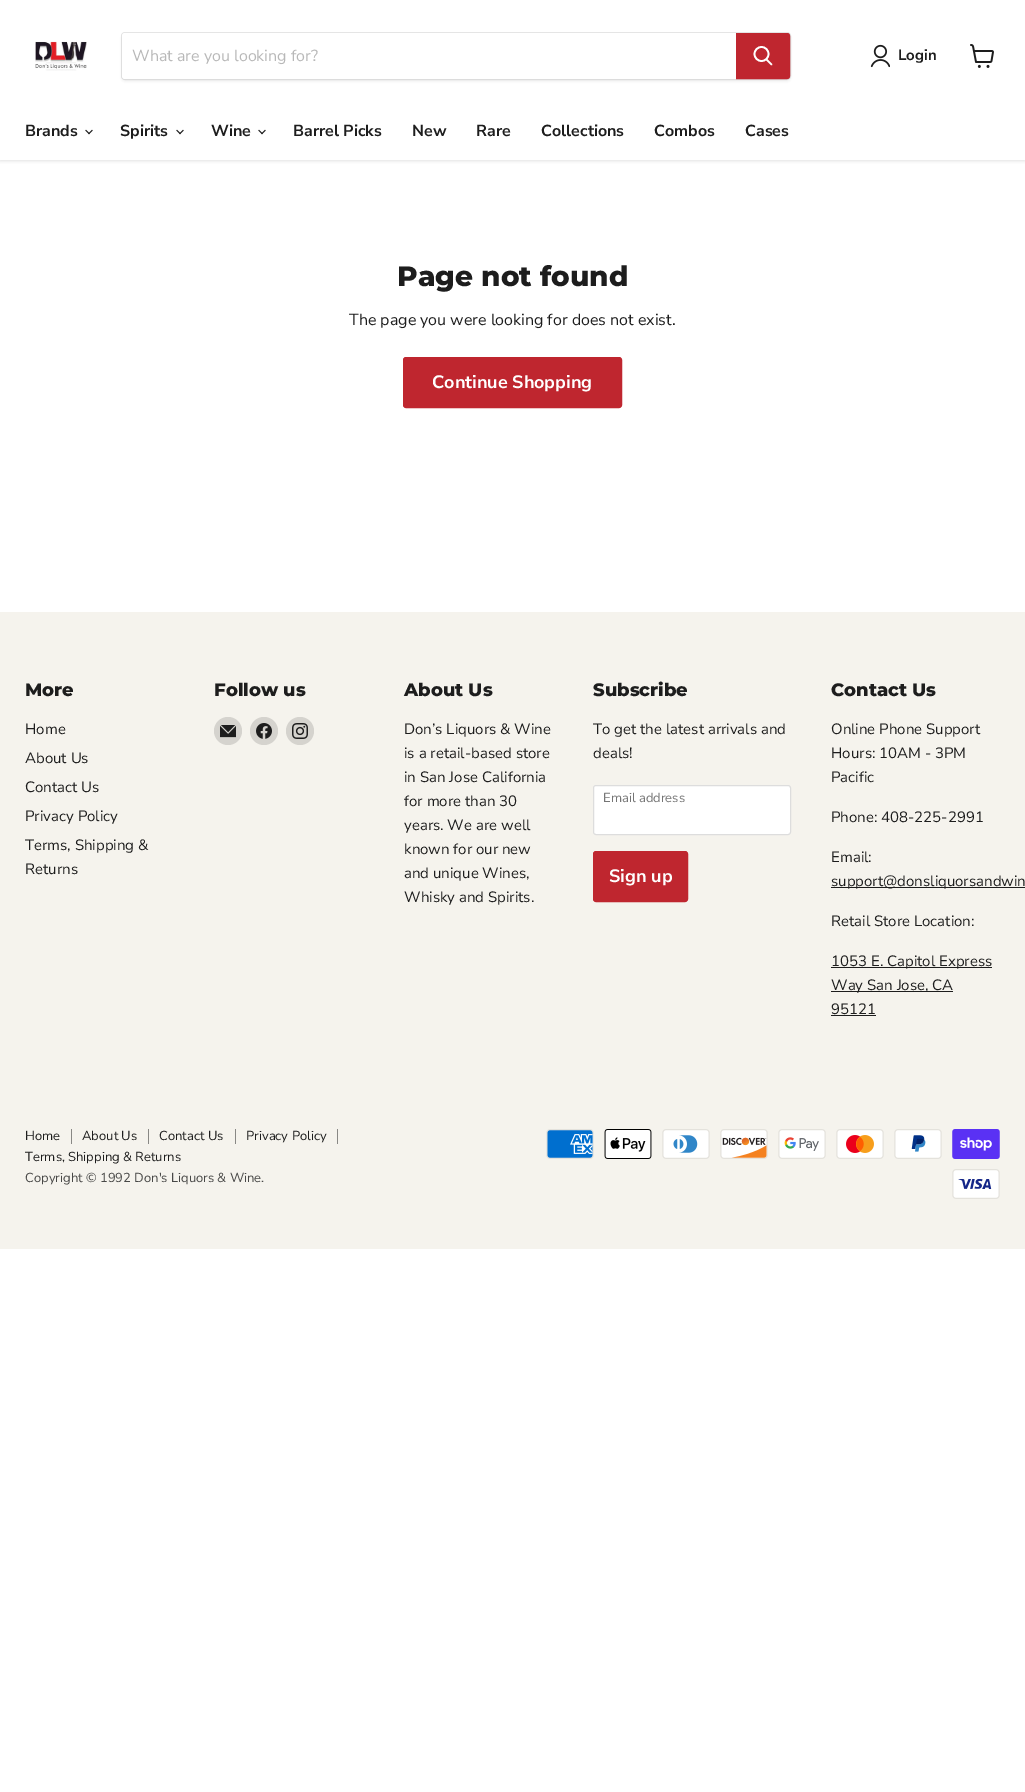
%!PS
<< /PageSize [1025 1792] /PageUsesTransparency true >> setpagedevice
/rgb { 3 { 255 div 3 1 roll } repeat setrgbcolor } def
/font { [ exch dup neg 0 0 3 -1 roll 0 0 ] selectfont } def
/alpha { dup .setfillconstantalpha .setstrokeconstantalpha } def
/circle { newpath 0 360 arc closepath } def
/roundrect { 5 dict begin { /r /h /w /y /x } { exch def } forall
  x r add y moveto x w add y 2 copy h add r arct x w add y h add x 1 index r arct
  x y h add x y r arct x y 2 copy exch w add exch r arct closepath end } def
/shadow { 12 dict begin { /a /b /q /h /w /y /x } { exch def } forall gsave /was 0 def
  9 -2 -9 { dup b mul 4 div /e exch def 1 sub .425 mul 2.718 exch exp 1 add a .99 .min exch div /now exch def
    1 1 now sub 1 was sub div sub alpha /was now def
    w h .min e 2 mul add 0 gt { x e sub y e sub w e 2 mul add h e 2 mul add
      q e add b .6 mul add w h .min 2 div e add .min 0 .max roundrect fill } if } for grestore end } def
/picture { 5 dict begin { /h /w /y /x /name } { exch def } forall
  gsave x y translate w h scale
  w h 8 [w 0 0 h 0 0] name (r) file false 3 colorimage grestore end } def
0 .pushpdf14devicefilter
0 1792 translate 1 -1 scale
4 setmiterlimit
255 255 255 rgb
0 0 1025 1792 rectfill
gsave
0 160 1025 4 rectclip
128 128 128 rgb
0 1 1025 160 0 2 0.25 shadow
grestore
(img/1.rgb) 35 41 52 30 picture
128 128 128 rgb
121 34 670 48 4 1.5 0.11 shadow
0.2 alpha
121.5 32.5 669 47 3.5 roundrect stroke
1 alpha
255 255 255 rgb
125 33 moveto 736 33 lineto 736 79 lineto 125 79 lineto 123.5 79 122 77.5 122 76 curveto 122 36 lineto 122 34.5 123.5 33 125 33 curveto closepath fill
191 38 47 rgb
736.5 33.5 moveto 787 33.5 lineto 788.5 33.5 789.5 34.5 789.5 36 curveto 789.5 76 lineto 789.5 77.5 788.5 78.5 787 78.5 curveto 736.5 78.5 lineto closepath gsave fill grestore
stroke
255 255 255 rgb
1.7 setlinewidth
1 setlinecap
771.5 64.5 moveto 766.5 59.5 lineto stroke
0 setlinecap
761.5 54 7 circle stroke
(img/2.rgb) 870 44 20 24 picture
(img/3.rgb) 970 44 24 24 picture
(img/4.rgb) 85 129 8 6 picture
(img/4.rgb) 176 129 8 6 picture
(img/4.rgb) 258 129 8 6 picture
191 38 47 rgb
403.5 357.5 218 50 2.5 roundrect gsave fill grestore
1 setlinewidth
stroke
245 243 237 rgb
0 612 1025 637 rectfill
213 211 206 rgb
228 731 14 circle fill
(img/5.rgb) 220 725 16 13 picture
264 731 14 circle fill
(img/6.rgb) 256 723 16 16 picture
300 731 14 circle fill
(img/7.rgb) 292 723 16 16 picture
255 255 255 rgb
593.5 785.5 197 49 2.5 roundrect gsave fill grestore
221 221 221 rgb
stroke
191 38 47 rgb
593.5 851.5 94 50 2.5 roundrect gsave fill grestore
stroke
[
  [831 887 194 1 29 29 29]
  [831 967 161 1 29 29 29]
  [831 991 122 1 29 29 29]
  [831 1015 45 1 29 29 29]
  [71 1129 1 15 137 136 133]
  [148 1129 1 15 137 136 133]
  [235 1129 1 15 137 136 133]
  [337 1129 1 15 137 136 133]
] { aload pop rgb rectfill } forall
(img/8.rgb) 546 1129 48 30 picture
(img/9.rgb) 604 1129 48 30 picture
(img/10.rgb) 662 1129 48 30 picture
(img/11.rgb) 720 1129 48 30 picture
(img/12.rgb) 778 1129 48 30 picture
(img/13.rgb) 836 1129 48 30 picture
(img/14.rgb) 894 1129 48 30 picture
(img/15.rgb) 952 1129 48 30 picture
(img/16.rgb) 952 1169 48 30 picture
/NunitoSans-Regular 16 font
184 184 184 rgb
132 61 moveto (What are you looking for?) show
/NunitoSans-Bold 15 font
29 29 29 rgb
898 60 moveto (Login) show
/NunitoSans-Bold 16 font
[
  [(Brands) 25 136]
  [(Spirits) 120 136]
  [(Wine) 211 136]
  [(Barrel Picks) 293 136]
  [(New) 412 136]
  [(Rare) 476 136]
  [(Collections) 541 136]
  [(Combos) 654 136]
  [(Cases) 745 136]
] { aload pop moveto show } forall
/Montserrat-ExtraBold 28 font
397 286 moveto (Page not found) show
/NunitoSans-Regular 16 font
349 325 moveto (The page you were looking for does not exist.) show
/NunitoSans-Bold 18 font
255 255 255 rgb
432 388 moveto (Continue Shopping) show
/Montserrat-ExtraBold 18 font
29 29 29 rgb
25 696 moveto (More) show
/NunitoSans-Regular 15 font
[
  [(Home) 25 734]
  [(About Us) 25 763]
  [(Contact Us) 25 792]
  [(Privacy Policy) 25 821]
  [(Terms, Shipping &) 25 850]
  [(Returns) 25 874]
] { aload pop moveto show } forall
/Montserrat-ExtraBold 18 font
214 696 moveto (Follow us) show
404 696 moveto (About Us) show
/NunitoSans-Regular 15 font
[
  [(Don’s Liquors & Wine) 404 734]
  [(is a retail-based store) 404 758]
  [(in San Jose California) 404 782]
  [(for more than 30) 404 806]
  [(years. We are well) 404 830]
  [(known for our new) 404 854]
  [(and unique Wines,) 404 878]
  [(Whisky and Spirits.) 404 902]
] { aload pop moveto show } forall
/Montserrat-ExtraBold 18 font
593 696 moveto (Subscribe) show
/NunitoSans-Regular 15 font
593 734 moveto (To get the latest arrivals and) show
593 758 moveto (deals!) show
/NunitoSans-Regular 13 font
117 117 117 rgb
603 802 moveto (Email address) show
/NunitoSans-Bold 18 font
255 255 255 rgb
609 882 moveto (Sign up) show
/Montserrat-ExtraBold 18 font
29 29 29 rgb
831 696 moveto (Contact Us) show
/NunitoSans-Regular 15 font
[
  [(Online Phone Support) 831 734]
  [(Hours: 10AM - 3PM) 831 758]
  [(Pacific) 831 782]
  [(Phone: 408-225-2991) 831 822]
  [(Email:) 831 862]
  [(support@donsliquorsandwin) 831 886]
  [(Retail Store Location:) 831 926]
  [(1053 E. Capitol Express) 831 966]
  [(Way San Jose, CA) 831 990]
  [(95121) 831 1014]
] { aload pop moveto show } forall
/NunitoSans-Regular 13 font
[
  [(Home) 25 1140]
  [(About Us) 82 1140]
  [(Contact Us) 159 1140]
  [(Privacy Policy) 246 1140]
  [(Terms, Shipping & Returns) 25 1161]
] { aload pop moveto show } forall
72 72 71 rgb
25 1182 moveto (Copyright © 1992 Don's Liquors & Wine.) show
.poppdf14devicefilter showpage
